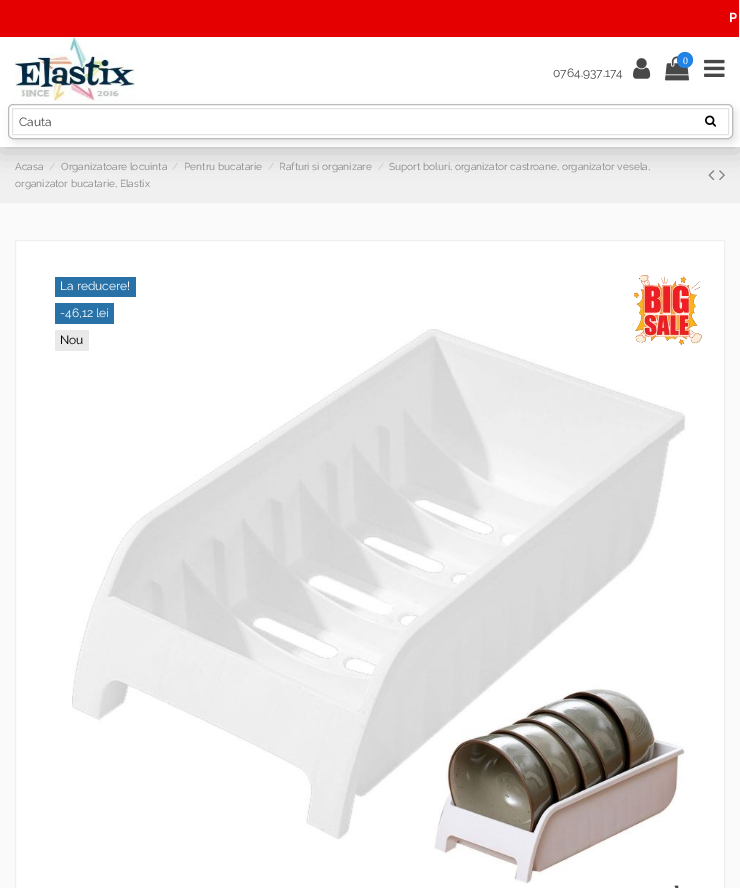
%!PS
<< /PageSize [740 888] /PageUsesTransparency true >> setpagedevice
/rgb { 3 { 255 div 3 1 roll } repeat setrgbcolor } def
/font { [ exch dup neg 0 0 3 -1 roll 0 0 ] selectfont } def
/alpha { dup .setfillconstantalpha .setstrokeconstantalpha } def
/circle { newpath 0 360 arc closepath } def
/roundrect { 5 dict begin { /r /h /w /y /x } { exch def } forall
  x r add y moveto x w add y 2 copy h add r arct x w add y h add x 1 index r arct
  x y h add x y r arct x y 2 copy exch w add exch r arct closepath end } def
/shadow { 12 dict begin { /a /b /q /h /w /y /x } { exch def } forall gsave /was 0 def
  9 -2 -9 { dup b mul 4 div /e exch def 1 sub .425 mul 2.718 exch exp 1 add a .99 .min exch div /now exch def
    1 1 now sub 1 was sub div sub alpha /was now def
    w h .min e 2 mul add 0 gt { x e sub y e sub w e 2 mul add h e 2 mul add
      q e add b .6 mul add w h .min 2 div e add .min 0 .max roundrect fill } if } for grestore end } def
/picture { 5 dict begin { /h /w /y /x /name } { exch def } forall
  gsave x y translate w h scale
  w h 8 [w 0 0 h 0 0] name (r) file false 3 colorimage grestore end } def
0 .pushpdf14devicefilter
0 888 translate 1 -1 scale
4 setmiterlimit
250 250 250 rgb
0 0 740 888 rectfill
240 240 240 rgb
0 147 740 56 rectfill
(img/6.rgb) 708 170 7 11 picture
(img/7.rgb) 719 170 6 11 picture
0 0 0 rgb
0 5 740 147 0 12.5 0.18 shadow
255 255 255 rgb
0 0 740 147 rectfill
228 0 0 rgb
0 0 739 37 rectfill
(img/1.rgb) 15 37 120 64 picture
(img/2.rgb) 633 58 18 21 picture
(img/3.rgb) 665 56 24 25 picture
33 131 230 rgb
685 60 8 circle fill
(img/4.rgb) 704 59 21 18 picture
0 0 0 rgb
11 108 725 35 5 4 0.1 shadow
255 255 255 rgb
8 104 725 35 5 roundrect fill
0.27 alpha
0 0 0 rgb
8.5 104.5 724 34 4.5 roundrect stroke
1 alpha
227 227 227 rgb
12.5 108.5 716 26 rectstroke
(img/5.rgb) 705 115 12 12 picture
255 255 255 rgb
15.5 240.5 moveto 724.5 240.5 lineto 724.5 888.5 lineto 15.5 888.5 lineto closepath gsave fill grestore
240 240 240 rgb
stroke
41 114 167 rgb
55 277 81 20 rectfill
55 303 59 21 rectfill
(img/8.rgb) 72 329 615 555 picture
233 233 233 rgb
55 330 34 21 rectfill
(img/9.rgb) 674 885 5 3 picture
(img/10.rgb) 632 275 70 70 picture
/Raleway-Bold 13 font
255 255 255 rgb
729 22 moveto (P) show
/Raleway-Regular 12 font
72 72 72 rgb
553 77 moveto (0764.937.174) show
/LiberationSerif-Regular 10 font
255 255 255 rgb
683 64 moveto (0) show
/Raleway-Regular 12 font
72 72 72 rgb
19 126 moveto (Cauta) show
/Raleway-Regular 10.15 font
133 133 133 rgb
15 170 moveto (Acasa) show
197 197 197 rgb
49 170 moveto (/) show
133 133 133 rgb
61 170 moveto (Organizatoare locuinta) show
197 197 197 rgb
172 170 moveto (/) show
133 133 133 rgb
184 170 moveto (Pentru bucatarie) show
197 197 197 rgb
268 170 moveto (/) show
133 133 133 rgb
279 170 moveto (Rafturi si organizare) show
197 197 197 rgb
378 170 moveto (/) show
133 133 133 rgb
389 170 moveto (Suport boluri, organizator castroane, organizator vesela,) show
15 187 moveto (organizator bucatarie, Elastix) show
/Raleway-Regular 12 font
255 255 255 rgb
60 290 moveto (La reducere!) show
60 317 moveto (-46,12 lei) show
0 0 0 rgb
60 344 moveto (Nou) show
.poppdf14devicefilter showpage
